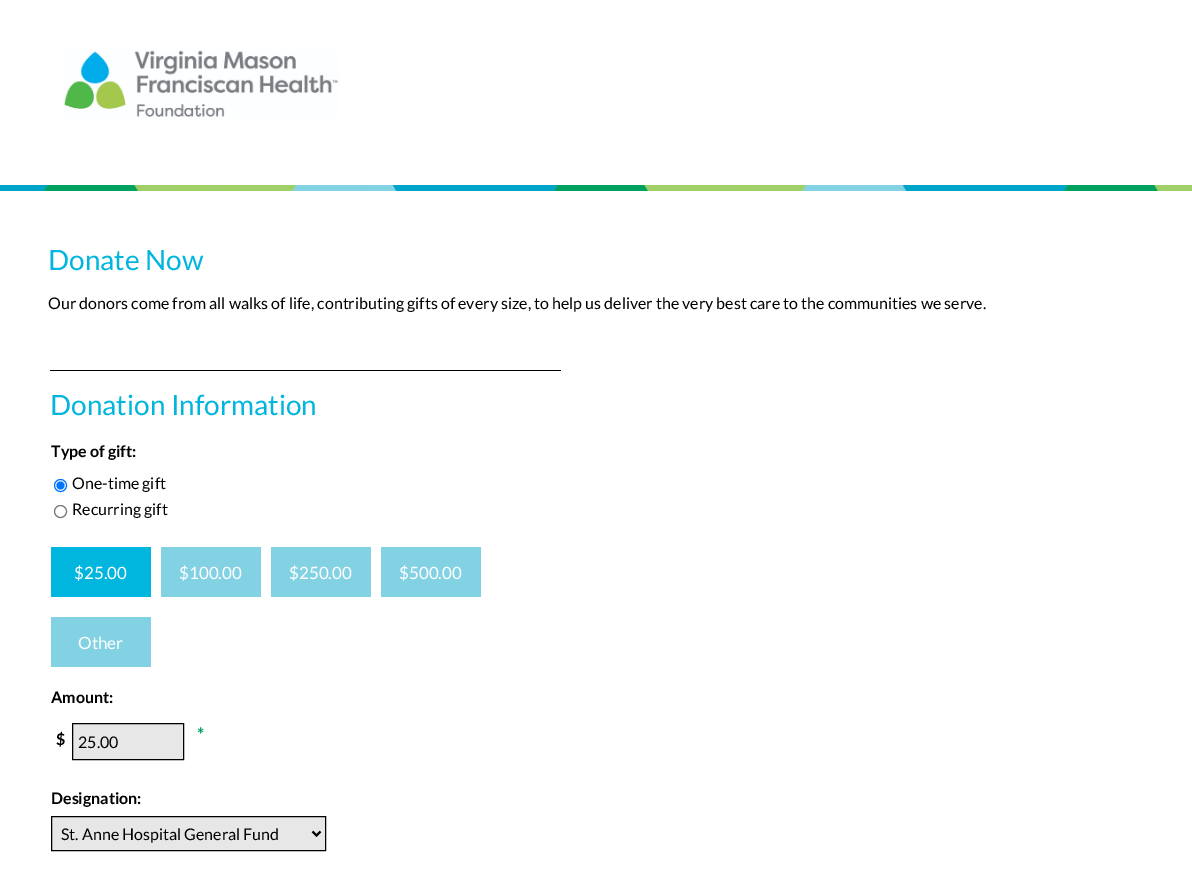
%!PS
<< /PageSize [1192 889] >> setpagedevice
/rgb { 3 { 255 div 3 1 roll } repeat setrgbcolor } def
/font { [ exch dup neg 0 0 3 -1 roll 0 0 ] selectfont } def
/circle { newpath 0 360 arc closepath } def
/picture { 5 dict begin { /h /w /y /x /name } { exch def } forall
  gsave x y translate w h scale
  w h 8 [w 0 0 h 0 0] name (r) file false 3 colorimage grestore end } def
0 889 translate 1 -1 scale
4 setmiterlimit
255 255 255 rgb
0 0 1192 889 rectfill
(img/1.rgb) 0 185 1192 6 picture
(img/2.rgb) 64 50 275 67 picture
0 0 0 rgb
50 370 511 1 rectfill
0 117 255 rgb
60.5 485.5 6 circle stroke
60.5 485.5 4 circle fill
118 118 118 rgb
60.5 511.5 6 circle stroke
[
  [51 547 100 50 0 182 222]
  [161 547 100 50 131 210 228]
  [271 547 100 50 131 210 228]
  [381 547 100 50 131 210 228]
  [51 617 100 50 131 210 228]
] { aload pop rgb rectfill } forall
231 231 231 rgb
72.5 723.5 moveto 183.5 723.5 lineto 183.5 759.5 lineto 72.5 759.5 lineto closepath gsave fill grestore
0 0 0 rgb
stroke
231 231 231 rgb
51.5 816.5 moveto 325.5 816.5 lineto 325.5 850.5 lineto 51.5 850.5 lineto closepath gsave fill grestore
0 0 0 rgb
stroke
2 setlinewidth
312.5 831.5 moveto 316.5 835.5 lineto 320.5 831.5 lineto stroke
/Lato-Regular 28 font
0 182 222 rgb
48 270 moveto (Donate Now) show
/Lato-Regular 16 font
0 0 0 rgb
48 309 moveto (Our donors come from all walks of life, contributing gifts of every size, to help us deliver the very best care to the communities we serve.) show
/Lato-Regular 28 font
0 182 222 rgb
50 415 moveto (Donation Information) show
/Lato-Bold 16 font
0 0 0 rgb
51 457 moveto (Type of gift:) show
/Lato-Regular 16 font
72 489 moveto (One-time gift) show
72 515 moveto (Recurring gift) show
/Lato-Regular 17 font
255 255 255 rgb
[
  [($25.00) 74 579]
  [($100.00) 179 579]
  [($250.00) 289 579]
  [($500.00) 399 579]
  [(Other) 78 649]
] { aload pop moveto show } forall
/Lato-Bold 16 font
0 0 0 rgb
51 703 moveto (Amount:) show
56 745 moveto ($) show
/Lato-Regular 16 font
78 748 moveto (25.00) show
/Lato-Bold 18 font
0 161 96 rgb
197 741 moveto (*) show
/Lato-Bold 16 font
0 0 0 rgb
51 804 moveto (Designation:) show
/Lato-Regular 16 font
61 840 moveto (St. Anne Hospital General Fund) show
showpage
